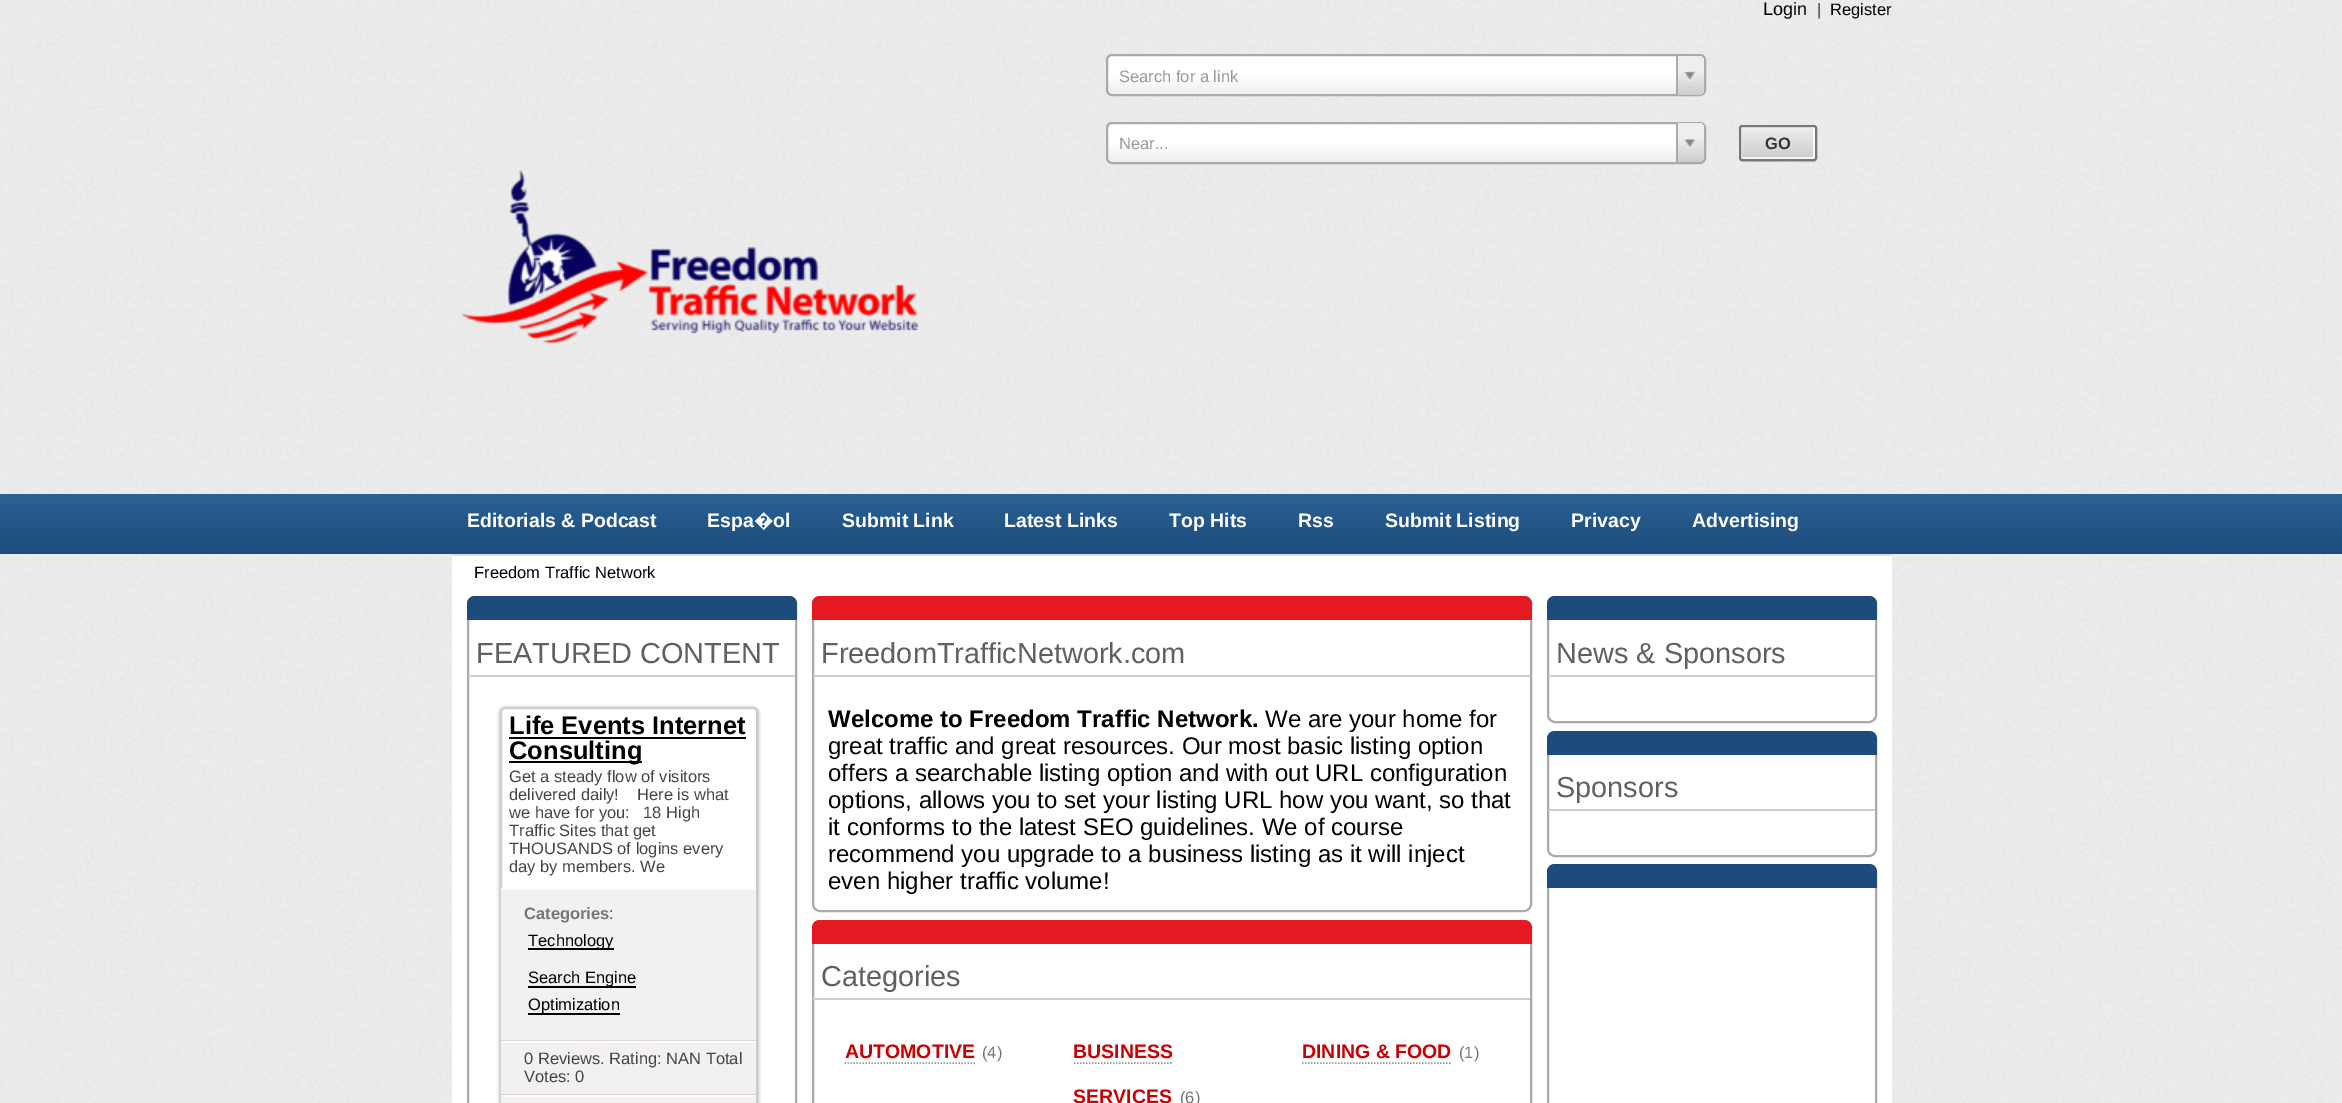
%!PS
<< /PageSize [2342 1103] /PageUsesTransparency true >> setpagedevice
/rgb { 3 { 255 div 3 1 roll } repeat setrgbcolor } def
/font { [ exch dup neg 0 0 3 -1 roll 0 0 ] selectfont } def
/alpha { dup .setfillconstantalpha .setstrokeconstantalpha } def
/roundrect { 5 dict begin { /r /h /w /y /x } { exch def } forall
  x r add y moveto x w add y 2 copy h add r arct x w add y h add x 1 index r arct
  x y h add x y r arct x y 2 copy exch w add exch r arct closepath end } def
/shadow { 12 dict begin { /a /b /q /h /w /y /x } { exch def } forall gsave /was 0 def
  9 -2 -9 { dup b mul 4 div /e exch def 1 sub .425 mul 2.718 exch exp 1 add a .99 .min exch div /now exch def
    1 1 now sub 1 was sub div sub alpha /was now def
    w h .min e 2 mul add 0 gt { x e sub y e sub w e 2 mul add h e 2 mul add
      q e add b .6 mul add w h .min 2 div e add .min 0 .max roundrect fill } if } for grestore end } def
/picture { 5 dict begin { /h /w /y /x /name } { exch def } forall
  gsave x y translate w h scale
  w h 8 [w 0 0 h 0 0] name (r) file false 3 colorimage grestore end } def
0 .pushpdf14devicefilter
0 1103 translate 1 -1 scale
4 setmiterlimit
255 255 255 rgb
0 0 2342 1103 rectfill
(img/1.rgb) 0 0 2342 1103 picture
gsave 1107 56 597 39 5 roundrect clip newpath
<< /ShadingType 2 /ColorSpace /DeviceRGB /Coords [1107 95 1107 56] /Extend [true true] /Function << /FunctionType 3 /Domain [0 1] /Functions [<< /FunctionType 2 /Domain [0 1] /C0 [0.933 0.933 0.933] /C1 [1 1 1] /N 1 >> << /FunctionType 2 /Domain [0 1] /C0 [1 1 1] /C1 [1 1 1] /N 1 >>] /Bounds [0.5] /Encode [0 1 0 1] >> >> shfill grestore
170 170 170 rgb
2 setlinewidth
1107 55 598 40 5 roundrect stroke
gsave
1107 56 597 39 5 roundrect clip newpath
gsave 1676 56 moveto 1698 56 lineto 1701.5 56 1704 58.5 1704 62 curveto 1704 89 lineto 1704 92.5 1701.5 95 1698 95 curveto 1676 95 lineto closepath clip newpath
<< /ShadingType 2 /ColorSpace /DeviceRGB /Coords [1677 95 1677 56] /Extend [true true] /Function << /FunctionType 3 /Domain [0 1] /Functions [<< /FunctionType 2 /Domain [0 1] /C0 [0.8 0.8 0.8] /C1 [0.933 0.933 0.933] /N 1 >> << /FunctionType 2 /Domain [0 1] /C0 [0.933 0.933 0.933] /C1 [0.933 0.933 0.933] /N 1 >>] /Bounds [0.6] /Encode [0 1 0 1] >> >> shfill grestore
grestore
1676 56 2 39 rectfill
(img/2.rgb) 1684 71 12 11 picture
gsave 1107 123 597 39 5 roundrect clip newpath
<< /ShadingType 2 /ColorSpace /DeviceRGB /Coords [1107 162 1107 123] /Extend [true true] /Function << /FunctionType 3 /Domain [0 1] /Functions [<< /FunctionType 2 /Domain [0 1] /C0 [0.933 0.933 0.933] /C1 [1 1 1] /N 1 >> << /FunctionType 2 /Domain [0 1] /C0 [1 1 1] /C1 [1 1 1] /N 1 >>] /Bounds [0.5] /Encode [0 1 0 1] >> >> shfill grestore
1107 123 598 40 5 roundrect stroke
gsave
1107 123 597 39 5 roundrect clip newpath
gsave 1676 123 moveto 1698 123 lineto 1701.5 123 1704 125.5 1704 129 curveto 1704 156 lineto 1704 159.5 1701.5 162 1698 162 curveto 1676 162 lineto closepath clip newpath
<< /ShadingType 2 /ColorSpace /DeviceRGB /Coords [1677 162 1677 123] /Extend [true true] /Function << /FunctionType 3 /Domain [0 1] /Functions [<< /FunctionType 2 /Domain [0 1] /C0 [0.8 0.8 0.8] /C1 [0.933 0.933 0.933] /N 1 >> << /FunctionType 2 /Domain [0 1] /C0 [0.933 0.933 0.933] /C1 [0.933 0.933 0.933] /N 1 >>] /Bounds [0.6] /Encode [0 1 0 1] >> >> shfill grestore
grestore
1676 123 2 39 rectfill
(img/3.rgb) 1684 139 12 10 picture
0.15 alpha
0 0 0 rgb
1739 159 moveto 1740 161 lineto 1742 162 lineto 1802 162 lineto 1821 162 1817 164 1817 144 curveto 1817 141 1818 129 1816 127 curveto 1816 147 lineto 1816 163 1818 160 1801 160 curveto 1754 160 lineto 1752 160 1741 163 1739 159 curveto closepath fill
gsave
1739 125 78 36 3 roundrect clip newpath
1 alpha
gsave 1739 126 moveto 1817 126 lineto 1817 159 lineto 1739 159 lineto closepath clip newpath
<< /ShadingType 2 /ColorSpace /DeviceRGB /Coords [1778 126 1778 159] /Extend [true true] /Function << /FunctionType 2 /Domain [0 1] /C0 [0.933 0.933 0.933] /C1 [0.8 0.8 0.8] /N 1 >> >> shfill grestore
grestore
0.8 alpha
255 255 255 rgb
1741 127 73 31 0.5 roundrect stroke
1 alpha
119 119 119 rgb
1740 126 76 34 2 roundrect stroke
(img/4.rgb) 460 169 459 175 picture
gsave 0 494 moveto 2342 494 lineto 2342 554 lineto 0 554 lineto closepath clip newpath
<< /ShadingType 2 /ColorSpace /DeviceRGB /Coords [1172 493 1172 554] /Extend [true true] /Function << /FunctionType 2 /Domain [0 1] /C0 [0.173 0.38 0.584] /C1 [0.106 0.298 0.482] /N 1 >> >> shfill grestore
255 255 255 rgb
452 556 1440 547 rectfill
221 221 221 rgb
452 554 1440 2 rectfill
170 170 170 rgb
468 597 328 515 7 roundrect stroke
27 76 123 rgb
475 596 moveto 789 596 lineto 793.5 596 797 599.5 797 604 curveto 797 620 lineto 467 620 lineto 467 604 lineto 467 599.5 470.5 596 475 596 curveto closepath fill
204 204 204 rgb
468 675 327 2 rectfill
34 25 25 rgb
500 708 258 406 5 2 0.4 shadow
255 255 255 rgb
501 708 256 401 4 roundrect gsave fill grestore
204 204 204 rgb
stroke
[
  [509 737 237 2 0 0 0]
  [509 761 133 2 0 0 0]
  [501 890 255 150 242 240 240]
  [501 888 255 2 252 250 250]
  [501 1040 255 1 217 212 212]
  [524 959 94 2 239 239 239]
  [528 948 86 2 0 0 0]
  [524 1023 210 2 239 239 239]
  [528 986 108 2 0 0 0]
  [528 1013 92 2 0 0 0]
  [501 1043 255 51 242 240 240]
  [501 1041 255 2 252 250 250]
  [501 1094 255 1 217 212 212]
  [501 1097 255 6 242 240 240]
  [501 1095 255 2 252 250 250]
] { aload pop rgb rectfill } forall
170 170 170 rgb
813 597 718 314 7 roundrect stroke
229 25 33 rgb
820 596 moveto 1524 596 lineto 1528.5 596 1532 599.5 1532 604 curveto 1532 620 lineto 812 620 lineto 812 604 lineto 812 599.5 815.5 596 820 596 curveto closepath fill
204 204 204 rgb
813 675 717 2 rectfill
170 170 170 rgb
813 921 718 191 7 roundrect stroke
229 25 33 rgb
820 920 moveto 1524 920 lineto 1528.5 920 1532 923.5 1532 928 curveto 1532 944 lineto 812 944 lineto 812 928 lineto 812 923.5 815.5 920 820 920 curveto closepath fill
204 204 204 rgb
813 998 717 2 rectfill
153 153 153 rgb
1.5 setlinewidth
[1.5 1.5] 0 setdash
844.5 1063 moveto 975 1063 lineto stroke
1074 1063 moveto 1173 1063 lineto stroke
1302 1063 moveto 1452 1063 lineto stroke
170 170 170 rgb
2 setlinewidth
[] 0 setdash
1548 597 328 125 7 roundrect stroke
27 76 123 rgb
1555 596 moveto 1869 596 lineto 1873.5 596 1877 599.5 1877 604 curveto 1877 620 lineto 1547 620 lineto 1547 604 lineto 1547 599.5 1550.5 596 1555 596 curveto closepath fill
204 204 204 rgb
1548 675 327 2 rectfill
170 170 170 rgb
1548 732 328 124 7 roundrect stroke
27 76 123 rgb
1555 731 moveto 1869 731 lineto 1873.5 731 1877 734.5 1877 739 curveto 1877 755 lineto 1547 755 lineto 1547 739 lineto 1547 734.5 1550.5 731 1555 731 curveto closepath fill
204 204 204 rgb
1548 809 327 2 rectfill
170 170 170 rgb
1548 865 328 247 7 roundrect stroke
27 76 123 rgb
1555 864 moveto 1869 864 lineto 1873.5 864 1877 867.5 1877 872 curveto 1877 888 lineto 1547 888 lineto 1547 872 lineto 1547 867.5 1550.5 864 1555 864 curveto closepath fill
/LiberationSans-Regular 18 font
0 0 0 rgb
1763 15 moveto (Login) show
/LiberationSans-Regular 16.5 font
51 51 51 rgb
1817 15 moveto (|) show
0 0 0 rgb
1830 15 moveto (Register) show
153 153 153 rgb
1119 82 moveto (Search for a link) show
1119 149 moveto (Near...) show
/LiberationSans-Bold 16.5 font
51 51 51 rgb
1765 149 moveto (GO) show
/LiberationSans-Bold 19.5 font
255 255 255 rgb
467 527 moveto (Editorials & Podcast) show
707 527 moveto (Espa) show
/NotoSans-Bold 19.5 font
754 527 moveto (�) show
/LiberationSans-Bold 19.5 font
[
  [(ol) 773 527]
  [(Submit Link) 842 527]
  [(Latest Links) 1004 527]
  [(Top Hits) 1169 527]
  [(Rss) 1298 527]
  [(Submit Listing) 1385 527]
  [(Privacy) 1571 527]
  [(Advertising) 1692 527]
] { aload pop moveto show } forall
/LiberationSans-Regular 16.5 font
0 0 0 rgb
474 578 moveto (Freedom Traffic Network) show
/LiberationSans-Regular 28.9 font
96 96 96 rgb
476 663 moveto (FEATURED CONTENT) show
/LiberationSans-Bold 25.5 font
0 0 0 rgb
509 734 moveto (Life Events Internet) show
509 759 moveto (Consulting) show
/LiberationSans-Regular 16.5 font
68 68 68 rgb
[
  [(Get a steady flow of visitors) 509 782]
  [(delivered daily!) 509 800]
  [(Here is what) 637 800]
  [(we have for you:) 509 818]
  [(18 High) 643 818]
  [(Traffic Sites that get) 509 836]
  [(THOUSANDS of logins every) 509 854]
  [(day by members. We) 509 872]
] { aload pop moveto show } forall
/LiberationSans-Bold 16.5 font
117 117 117 rgb
524 919 moveto (Categories) show
/LiberationSans-Regular 16.5 font
68 68 68 rgb
609 919 moveto (:) show
0 0 0 rgb
[
  [(Technology) 528 946]
  [(Search Engine) 528 983]
  [(Optimization) 528 1010]
] { aload pop moveto show } forall
68 68 68 rgb
524 1064 moveto (0 Reviews. Rating: NAN Total) show
524 1082 moveto (Votes: 0) show
/LiberationSans-Regular 28.9 font
96 96 96 rgb
821 663 moveto (FreedomTrafficNetwork.com) show
/LiberationSans-Bold 24 font
0 0 0 rgb
828 727 moveto (Welcome to Freedom Traffic Network.) show
/LiberationSans-Regular 24 font
[
  [(We are your home for) 1265 727]
  [(great traffic and great resources. Our most basic listing option) 828 754]
  [(offers a searchable listing option and with out URL configuration) 828 781]
  [(options, allows you to set your listing URL how you want, so that) 828 808]
  [(it conforms to the latest SEO guidelines. We of course) 828 835]
  [(recommend you upgrade to a business listing as it will inject) 828 862]
  [(even higher traffic volume!) 828 889]
] { aload pop moveto show } forall
/LiberationSans-Regular 28.9 font
96 96 96 rgb
821 986 moveto (Categories) show
/LiberationSans-Bold 19.5 font
202 0 2 rgb
845 1058 moveto (AUTOMOTIVE) show
/LiberationSans-Regular 16.5 font
117 117 117 rgb
982 1058 moveto (\(4\)) show
/LiberationSans-Bold 19.5 font
202 0 2 rgb
1073 1058 moveto (BUSINESS) show
1073 1103 moveto (SERVICES) show
/LiberationSans-Regular 16.5 font
117 117 117 rgb
1180 1103 moveto (\(6\)) show
/LiberationSans-Bold 19.5 font
202 0 2 rgb
1302 1058 moveto (DINING & FOOD) show
/LiberationSans-Regular 16.5 font
117 117 117 rgb
1459 1058 moveto (\(1\)) show
/LiberationSans-Regular 28.9 font
96 96 96 rgb
1556 663 moveto (News & Sponsors) show
1556 797 moveto (Sponsors) show
.poppdf14devicefilter showpage
